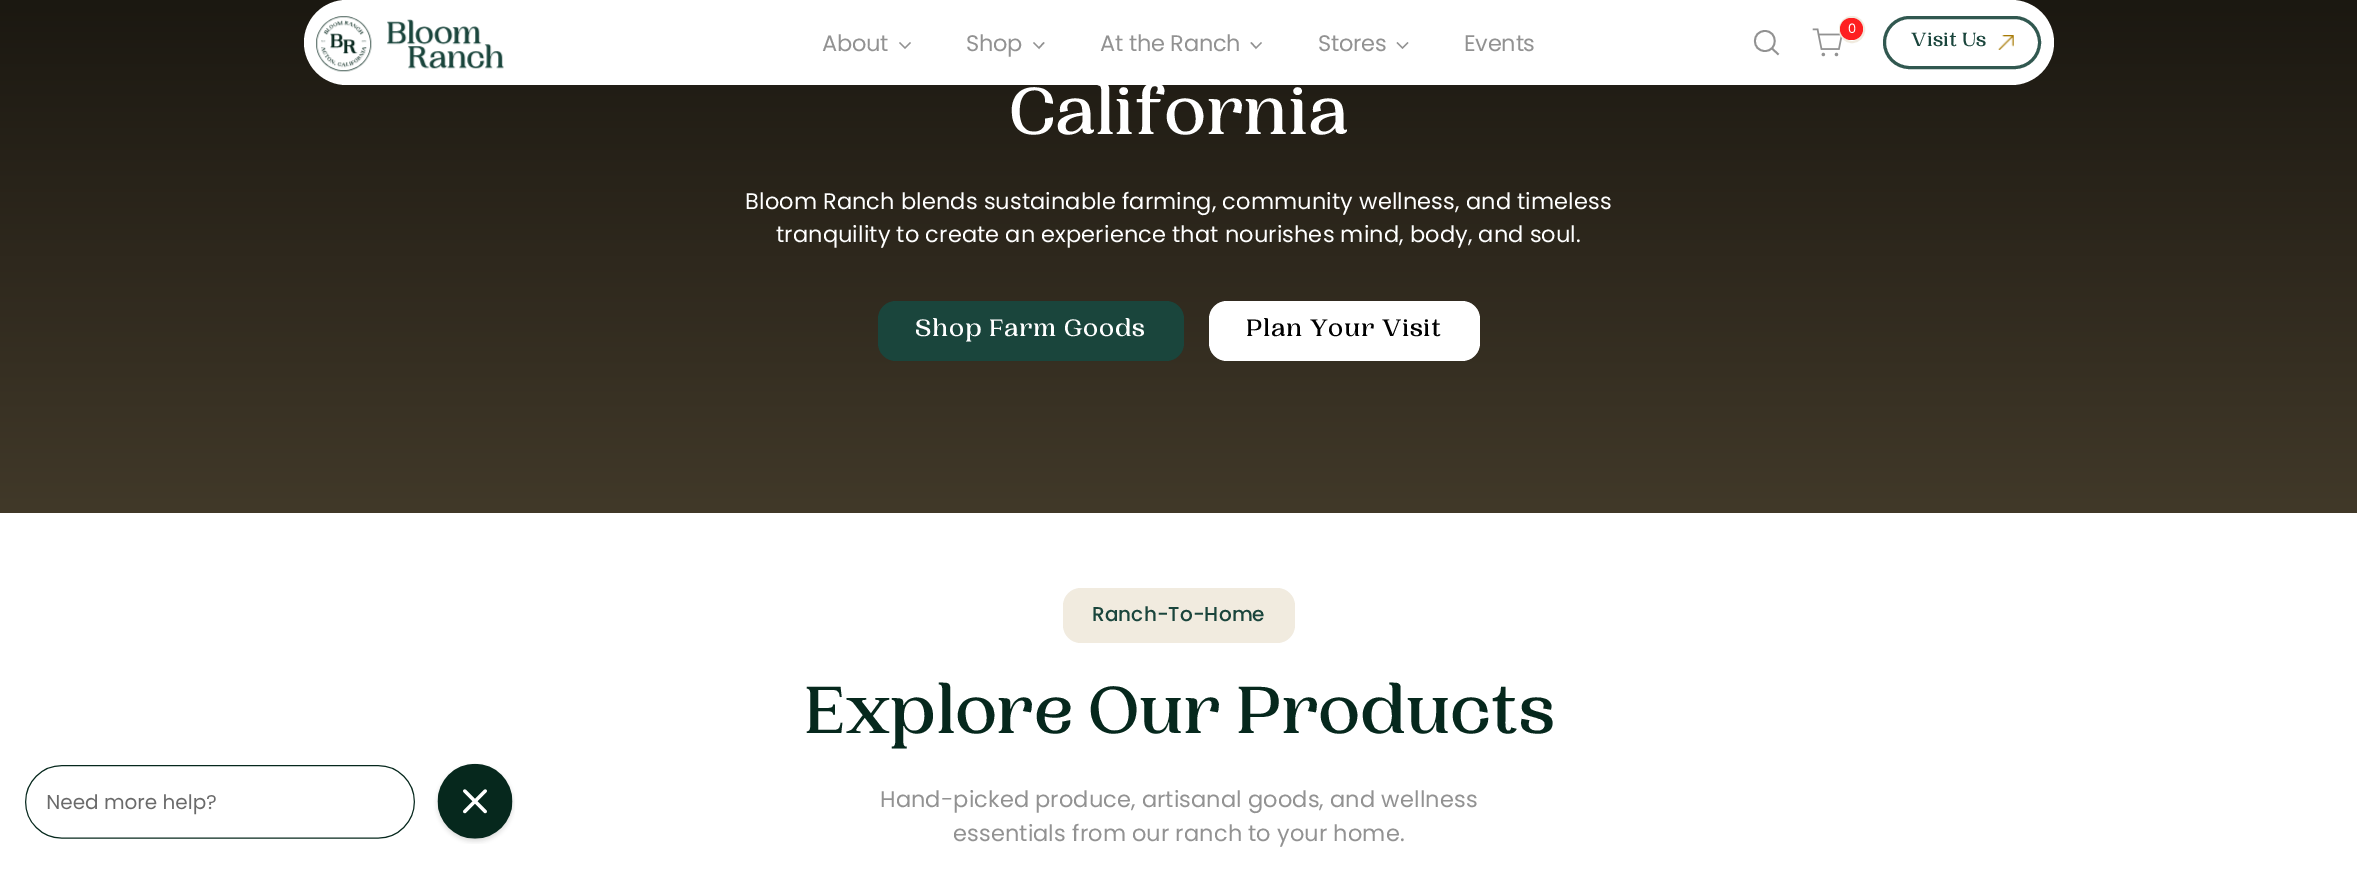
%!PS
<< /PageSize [2357 872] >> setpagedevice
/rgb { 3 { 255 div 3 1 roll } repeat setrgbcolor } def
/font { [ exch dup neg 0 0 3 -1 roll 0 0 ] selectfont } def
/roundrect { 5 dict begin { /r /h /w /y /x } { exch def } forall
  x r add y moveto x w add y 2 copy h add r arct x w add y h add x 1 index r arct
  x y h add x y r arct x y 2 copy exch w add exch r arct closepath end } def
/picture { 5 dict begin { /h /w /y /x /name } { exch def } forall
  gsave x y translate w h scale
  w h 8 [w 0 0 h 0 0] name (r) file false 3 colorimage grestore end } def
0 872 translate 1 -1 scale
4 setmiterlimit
255 255 255 rgb
0 0 2357 872 rectfill
(img/1.rgb) 25 763 490 81 picture
gsave 0 0 moveto 2357 0 lineto 2357 513 lineto 0 513 lineto closepath clip newpath
<< /ShadingType 2 /ColorSpace /DeviceRGB /Coords [1179 513 1179 -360] /Extend [true true] /Function << /FunctionType 2 /Domain [0 1] /C0 [0.255 0.224 0.161] /C1 [0 0 0] /N 1 >> >> shfill grestore
304 0 1750 85 42.5 roundrect fill
(img/2.rgb) 316 16 188 56 picture
146 146 146 rgb
1.4 setlinewidth
899.5 42.5 moveto 905 48 lineto 910.5 42.5 lineto stroke
1033.5 42.5 moveto 1039 48 lineto 1044 42.5 lineto stroke
1251 42.5 moveto 1256 48 lineto 1261.5 42.5 lineto stroke
1397 42.5 moveto 1402.5 48 lineto 1408 42.5 lineto stroke
(img/3.rgb) 1812 28 31 29 picture
241 235 223 rgb
2 setlinewidth
1840 17 24 25 12 roundrect stroke
254 31 32 rgb
1840 18 23 22 11 roundrect fill
146 146 146 rgb
1.8 setlinewidth
1 setlinecap
1765 51 moveto 1778 51 1778 31 1765 31 curveto 1751.5 31 1751.5 51 1765 51 curveto closepath stroke
0 setlinecap
1772 48.5 moveto 1778.5 54.5 lineto stroke
49 88 80 rgb
3 setlinewidth
1884.5 17.5 155 50 25 roundrect stroke
(img/4.rgb) 1998 35 16 15 picture
26 69 60 rgb
896 301 moveto 886 301 878 309 878 319 curveto 878 343 lineto 878 353 886 361 896 361 curveto 1166 361 lineto 1176 361 1184 353 1184 343 curveto 1184 319 lineto 1184 309 1176 301 1166 301 curveto closepath fill
255 255 255 rgb
1227 301 moveto 1217 301 1209 309 1209 319 curveto 1209 343 lineto 1209 353 1217 361 1227 361 curveto 1462 361 lineto 1472 361 1480 353 1480 343 curveto 1480 319 lineto 1480 309 1472 301 1462 301 curveto closepath fill
241 235 223 rgb
1063 588 232 55 18 roundrect fill
/Poppins-Regular 22.5 font
146 146 146 rgb
822 51 moveto -0.25 0 (About) ashow
966 51 moveto -0.25 0 (Shop) ashow
1100 51 moveto -0.25 0 (At the Ranch) ashow
1318 51 moveto -0.25 0 (Stores) ashow
1464 51 moveto -0.25 0 (Events) ashow
/Poppins-Regular 13 font
255 255 255 rgb
1848 33 moveto 0.1 0 (0) ashow
/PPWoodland-Medium 20 font
26 69 60 rgb
1911 46 moveto 0.1 0 (Visit Us) ashow
/PPWoodland-Medium 70 font
255 255 255 rgb
1009 134 moveto -0.7 0 (California) ashow
/Poppins-Regular 22.5 font
745 209 moveto 0.1 0 (Bloom Ranch blends sustainable farming, community wellness, and timeless) ashow
776 242 moveto 0.1 0 (tranquility to create an experience that nourishes mind, body, and soul.) ashow
/PPWoodland-Medium 25 font
915 336 moveto 0.75 0 (Shop Farm Goods) ashow
0 0 0 rgb
1246 336 moveto 0.75 0 (Plan Your Visit) ashow
/Poppins-Medium 20 font
26 69 60 rgb
1092 621 moveto 0.1 0 (Ranch-To-Home) ashow
/PPWoodland-Medium 70 font
6 40 29 rgb
804 733 moveto -0.7 0 (Explore Our Products) ashow
/Poppins-Regular 22.5 font
146 146 146 rgb
880 807 moveto 0.1 0 (Hand-picked produce, artisanal goods, and wellness) ashow
953 841 moveto 0.1 0 (essentials from our ranch to your home.) ashow
showpage
